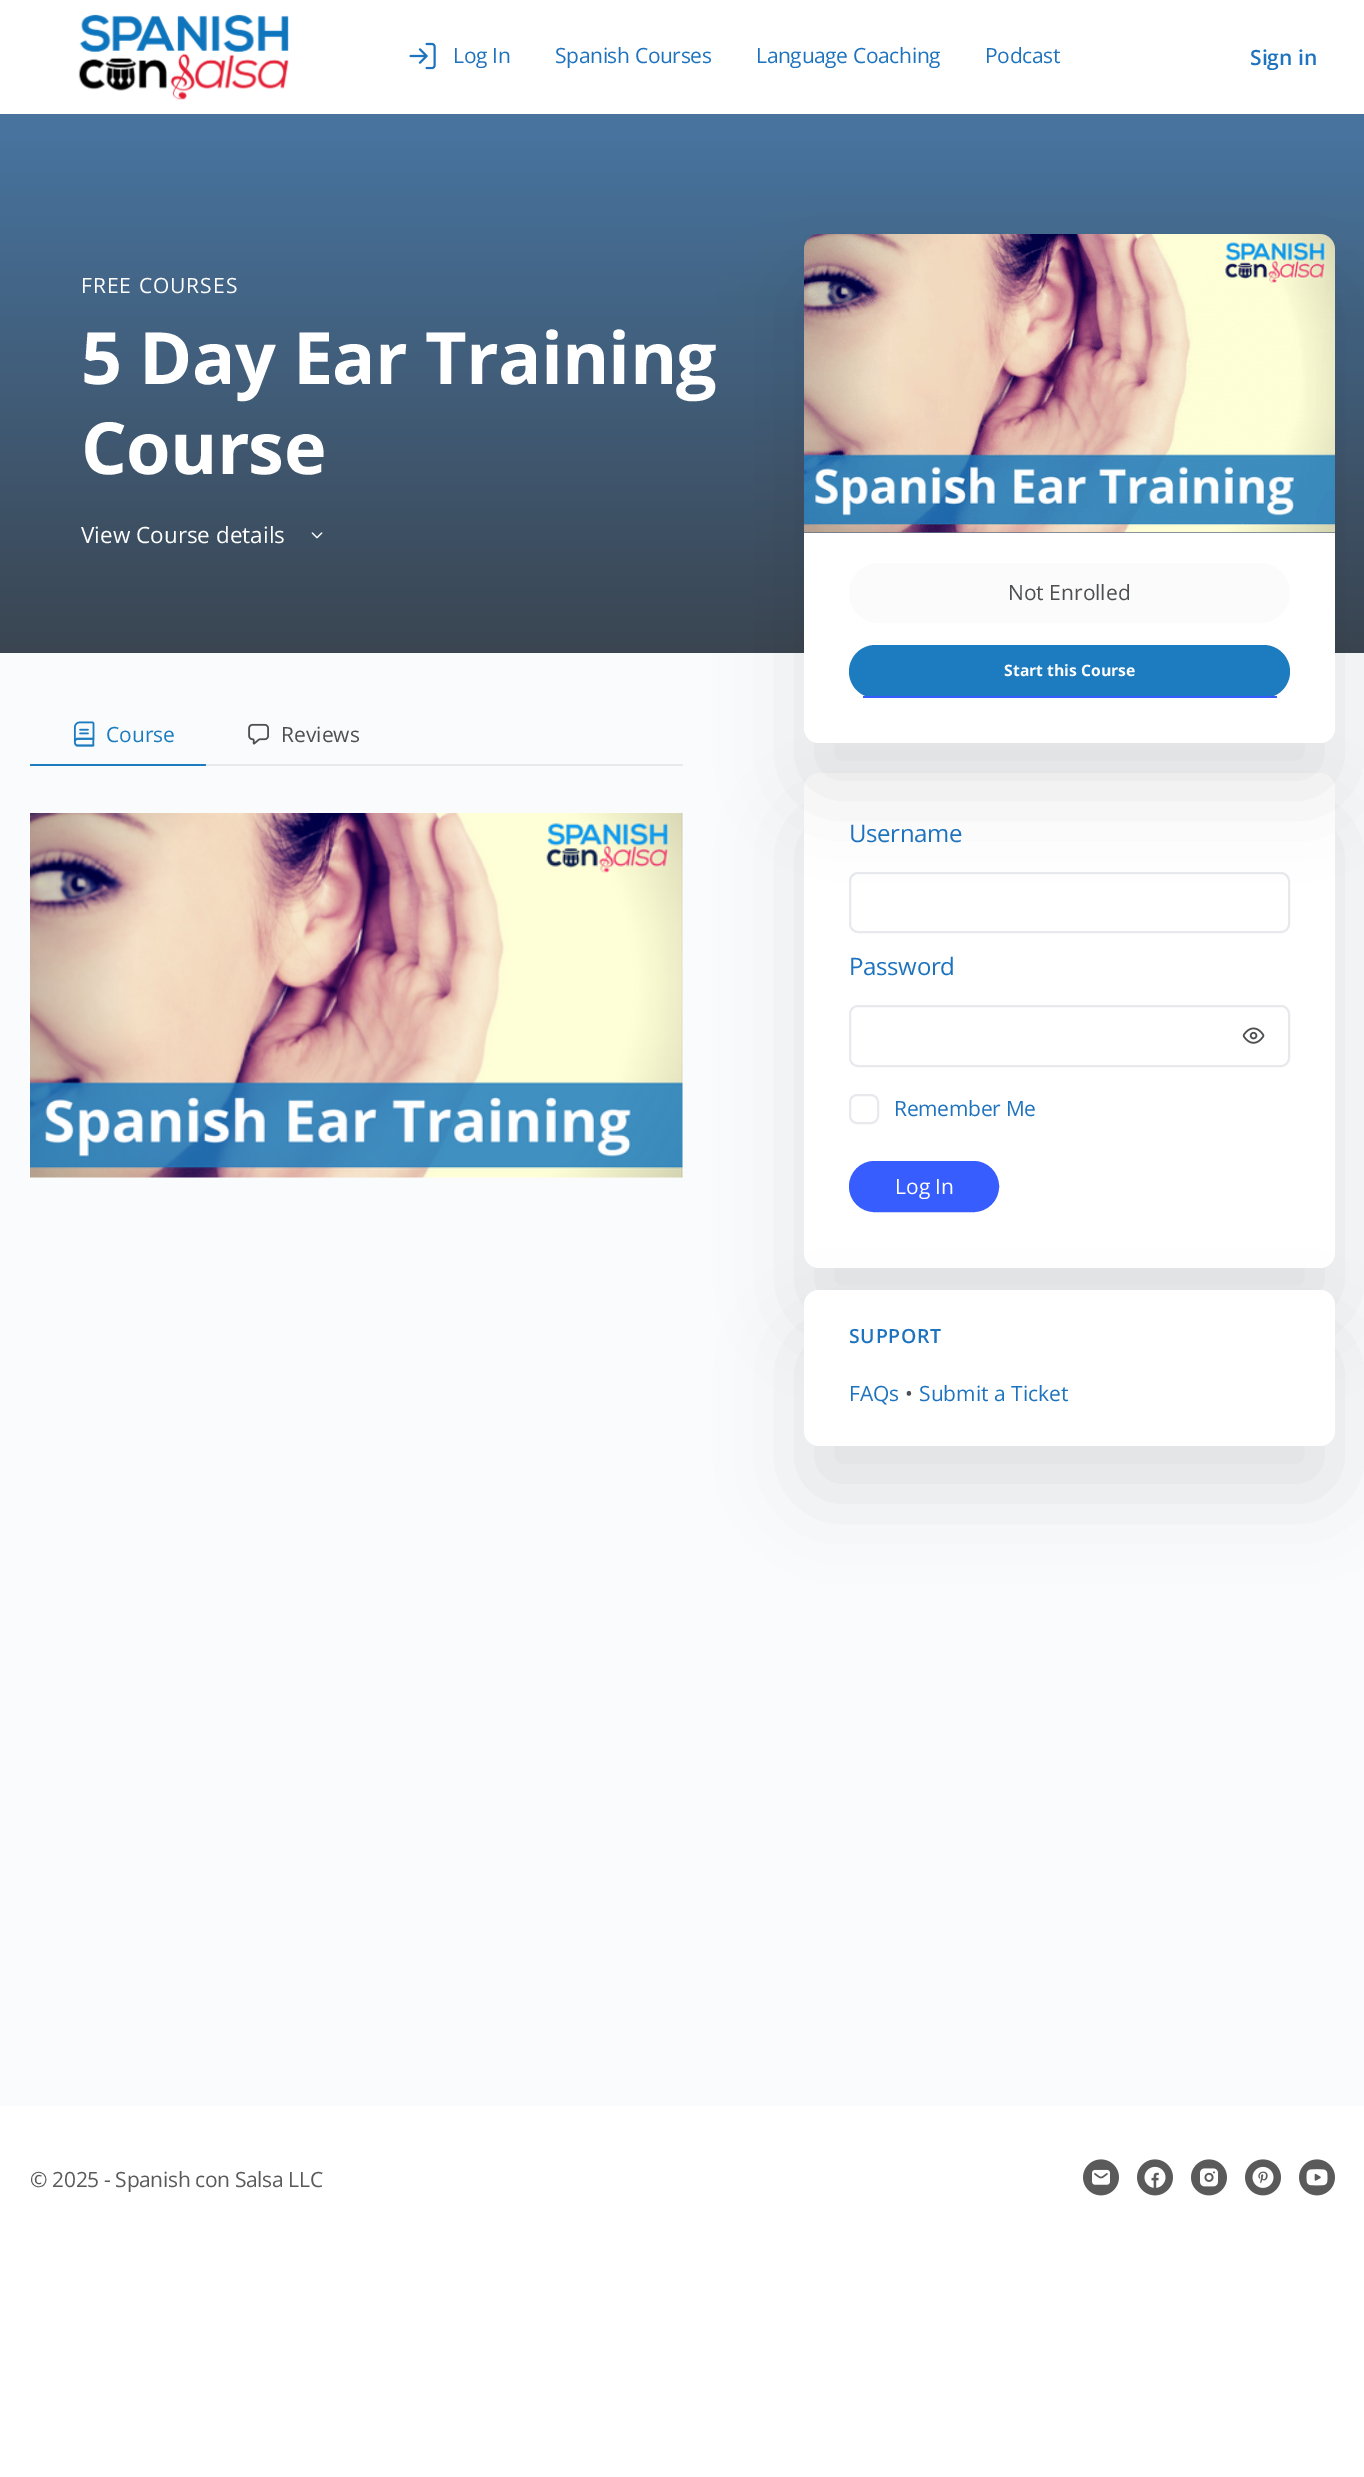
%!PS
<< /PageSize [1364 2477] /PageUsesTransparency true >> setpagedevice
/rgb { 3 { 255 div 3 1 roll } repeat setrgbcolor } def
/font { [ exch dup neg 0 0 3 -1 roll 0 0 ] selectfont } def
/alpha { dup .setfillconstantalpha .setstrokeconstantalpha } def
/roundrect { 5 dict begin { /r /h /w /y /x } { exch def } forall
  x r add y moveto x w add y 2 copy h add r arct x w add y h add x 1 index r arct
  x y h add x y r arct x y 2 copy exch w add exch r arct closepath end } def
/shadow { 12 dict begin { /a /b /q /h /w /y /x } { exch def } forall gsave /was 0 def
  9 -2 -9 { dup b mul 4 div /e exch def 1 sub .425 mul 2.718 exch exp 1 add a .99 .min exch div /now exch def
    1 1 now sub 1 was sub div sub alpha /was now def
    w h .min e 2 mul add 0 gt { x e sub y e sub w e 2 mul add h e 2 mul add
      q e add b .6 mul add w h .min 2 div e add .min 0 .max roundrect fill } if } for grestore end } def
/picture { 5 dict begin { /h /w /y /x /name } { exch def } forall
  gsave x y translate w h scale
  w h 8 [w 0 0 h 0 0] name (r) file false 3 colorimage grestore end } def
0 .pushpdf14devicefilter
0 2477 translate 1 -1 scale
4 setmiterlimit
250 251 253 rgb
0 0 1364 2477 rectfill
74 115 157 rgb
0 114 1364 2 rectfill
255 255 255 rgb
0 0 1364 114 rectfill
(img/1.rgb) 78 14 211 86 picture
(img/2.rgb) 409 42 27 28 picture
gsave 0 116 moveto 1364 116 lineto 1364 653 lineto 0 653 lineto closepath clip newpath
<< /ShadingType 2 /ColorSpace /DeviceRGB /Coords [683 114 683 653] /Extend [true true] /Function << /FunctionType 3 /Domain [0 1] /Functions [<< /FunctionType 2 /Domain [0 1] /C0 [0.278 0.451 0.62] /C1 [0.278 0.451 0.62] /N 1 >> << /FunctionType 2 /Domain [0 1] /C0 [0.278 0.451 0.62] /C1 [0.227 0.271 0.318] /N 1 >>] /Bounds [0.04] /Encode [0 1 0 1] >> >> shfill grestore
(img/3.rgb) 311 532 12 7 picture
(img/4.rgb) 73 721 22 26 picture
(img/6.rgb) 30 813 653 365 picture
0 0 0 rgb
804 821 531 495 15 40.5 0.1 shadow
255 255 255 rgb
804 773 531 495 15 roundrect fill
231 233 236 rgb
2 setlinewidth
850 873 439 59 8 roundrect stroke
0 0 0 rgb
804 282 531 509 15 40.5 0.1 shadow
231 233 236 rgb
30 764 653 2 1 roundrect fill
28 124 191 rgb
30 764 176 2 1 roundrect fill
(img/5.rgb) 248 723 21 22 picture
96 115 135 rgb
819 234 moveto 1320 234 lineto 1328.5 234 1335 240.5 1335 249 curveto 1335 533 lineto 804 533 lineto 804 249 lineto 804 240.5 810.5 234 819 234 curveto closepath fill
(img/7.rgb) 804 234 531 299 picture
255 255 255 rgb
804 533 moveto 1335 533 lineto 1335 728 lineto 1335 736.5 1328.5 743 1320 743 curveto 819 743 lineto 810.5 743 804 736.5 804 728 curveto closepath fill
251 251 252 rgb
849 563 441 60 30 roundrect fill
28 124 191 rgb
849 645 441 53 26.5 roundrect fill
56 93 255 rgb
863 696 414 2 rectfill
231 233 236 rgb
850 1006 439 60 8 roundrect stroke
(img/8.rgb) 1242 1027 23 17 picture
850 1095 28 28 7 roundrect stroke
56 93 255 rgb
850 1162 148 49 24.5 roundrect gsave fill grestore
stroke
0 0 0 rgb
804 1338 531 156 15 40.5 0.1 shadow
255 255 255 rgb
804 1290 531 156 15 roundrect fill
0 2106 1364 371 rectfill
(img/9.rgb) 1083 2159 36 37 picture
(img/10.rgb) 1137 2159 36 37 picture
(img/11.rgb) 1191 2159 36 37 picture
(img/12.rgb) 1245 2159 36 37 picture
(img/13.rgb) 1299 2159 36 37 picture
/OpenSans-Regular 21 font
30 115 190 rgb
453 63 moveto -0.35 0 (Log In) ashow
555 63 moveto -0.35 0 (Spanish Courses) ashow
756 63 moveto -0.35 0 (Language Coaching) ashow
985 63 moveto -0.35 0 (Podcast) ashow
/OpenSans-SemiBold 21 font
1250 65 moveto (Sign in) show
/OpenSans-Regular 21 font
255 255 255 rgb
81 293 moveto 1 0 (FREE COURSES) ashow
/OpenSans-Bold 72 font
81 384 moveto -0.75 0 (5 Day Ear Training) ashow
81 474 moveto -0.75 0 (Course) ashow
/OpenSans-Regular 22.5 font
81 543 moveto (View Course details) show
/OpenSans-Regular 21 font
28 124 191 rgb
106 742 moveto (Course) show
77 79 81 rgb
281 742 moveto (Reviews) show
1008 600 moveto (Not Enrolled) show
/OpenSans-Bold 15.75 font
255 255 255 rgb
1004 676 moveto (Start this Course) show
/OpenSans-Regular 24 font
30 115 190 rgb
849 842 moveto -0.35 0 (Username) ashow
849 975 moveto -0.35 0 (Password) ashow
/OpenSans-Regular 21 font
894 1116 moveto -0.25 0 (Remember Me) ashow
255 255 255 rgb
895 1194 moveto (Log In) show
/OpenSans-SemiBold 19.5 font
30 115 190 rgb
849 1343 moveto 0.75 0 (SUPPORT) ashow
/OpenSans-Regular 21 font
849 1401 moveto (FAQs) show
77 79 81 rgb
905 1401 moveto (•) show
30 115 190 rgb
919 1401 moveto (Submit a Ticket) show
90 90 90 rgb
30 2187 moveto -0.35 0 (© 2025 - Spanish con Salsa LLC) ashow
.poppdf14devicefilter showpage
